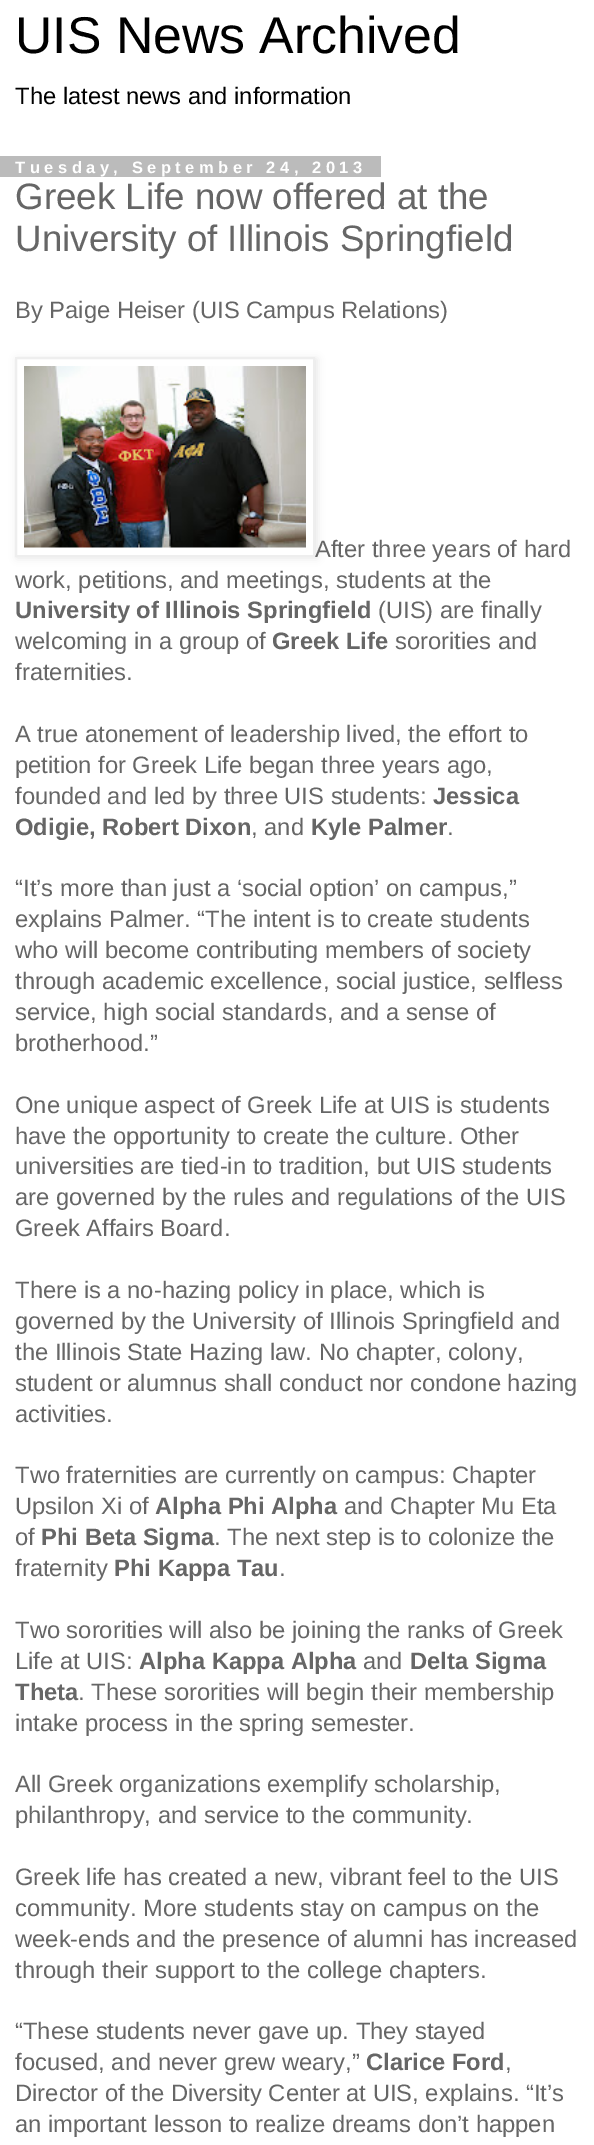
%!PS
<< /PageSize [594 2145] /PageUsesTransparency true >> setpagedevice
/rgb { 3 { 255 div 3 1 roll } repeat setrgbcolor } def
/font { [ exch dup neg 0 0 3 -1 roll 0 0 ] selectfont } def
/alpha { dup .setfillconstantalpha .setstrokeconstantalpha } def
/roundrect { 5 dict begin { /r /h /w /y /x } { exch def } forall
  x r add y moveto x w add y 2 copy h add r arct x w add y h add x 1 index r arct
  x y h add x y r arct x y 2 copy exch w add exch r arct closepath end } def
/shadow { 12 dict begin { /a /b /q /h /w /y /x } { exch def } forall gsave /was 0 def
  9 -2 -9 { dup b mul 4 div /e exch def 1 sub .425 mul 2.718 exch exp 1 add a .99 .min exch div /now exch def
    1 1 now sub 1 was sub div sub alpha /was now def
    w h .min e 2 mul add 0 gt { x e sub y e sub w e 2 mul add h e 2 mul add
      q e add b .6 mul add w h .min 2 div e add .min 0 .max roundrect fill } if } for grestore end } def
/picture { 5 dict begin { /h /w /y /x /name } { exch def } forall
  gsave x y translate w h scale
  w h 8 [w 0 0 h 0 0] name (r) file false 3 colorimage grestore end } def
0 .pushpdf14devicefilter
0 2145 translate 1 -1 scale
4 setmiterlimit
255 255 255 rgb
0 0 594 2145 rectfill
187 187 187 rgb
0 156 381 21 rectfill
0 0 0 rgb
17 359 300 199 0 4 0.1 shadow
255 255 255 rgb
16 358 moveto 314 358 lineto 314 556 lineto 16 556 lineto closepath gsave fill grestore
238 238 238 rgb
2 setlinewidth
stroke
(img/1.rgb) 24 366 282 182 picture
/LiberationSans-Regular 51.75 font
0 0 0 rgb
15 53 moveto (UIS News Archived) show
/LiberationSans-Regular 23.75 font
15 104 moveto (The latest news and information) show
/LiberationSans-Bold 16.5 font
255 255 255 rgb
15 173 moveto 4.5 0 (Tuesday, September 24, 2013) ashow
/LiberationSans-Regular 36.75 font
102 102 102 rgb
15 209 moveto (Greek Life now offered at the) show
15 251 moveto (University of Illinois Springfield) show
/LiberationSans-Regular 23.75 font
[
  [(By Paige Heiser \(UIS Campus Relations\)) 15 318]
  [(After three years of hard) 315 557]
  [(work, petitions, and meetings, students at the) 15 588]
] { aload pop moveto show } forall
/LiberationSans-Bold 23.75 font
15 618 moveto (University of Illinois Springfield) show
/LiberationSans-Regular 23.75 font
378 618 moveto (\(UIS\) are finally) show
15 649 moveto (welcoming in a group of) show
/LiberationSans-Bold 23.75 font
272 649 moveto (Greek Life) show
/LiberationSans-Regular 23.75 font
[
  [(sororities and) 395 649]
  [(fraternities.) 15 680]
  [(A true atonement of leadership lived, the effort to) 15 742]
  [(petition for Greek Life began three years ago,) 15 773]
  [(founded and led by three UIS students:) 15 804]
] { aload pop moveto show } forall
/LiberationSans-Bold 23.75 font
433 804 moveto (Jessica) show
15 835 moveto (Odigie, Robert Dixon) show
/LiberationSans-Regular 23.75 font
251 835 moveto (, and) show
/LiberationSans-Bold 23.75 font
311 835 moveto (Kyle Palmer) show
/LiberationSans-Regular 23.75 font
[
  [(.) 447 835]
  [(“It’s more than just a ‘social option’ on campus,”) 15 896]
  [(explains Palmer. “The intent is to create students) 15 927]
  [(who will become contributing members of society) 15 958]
  [(through academic excellence, social justice, selfless) 15 989]
  [(service, high social standards, and a sense of) 15 1020]
  [(brotherhood.”) 15 1051]
  [(One unique aspect of Greek Life at UIS is students) 15 1113]
  [(have the opportunity to create the culture. Other) 15 1144]
  [(universities are tied-in to tradition, but UIS students) 15 1174]
  [(are governed by the rules and regulations of the UIS) 15 1205]
  [(Greek Affairs Board.) 15 1236]
  [(There is a no-hazing policy in place, which is) 15 1298]
  [(governed by the University of Illinois Springfield and) 15 1329]
  [(the Illinois State Hazing law. No chapter, colony,) 15 1360]
  [(student or alumnus shall conduct nor condone hazing) 15 1391]
  [(activities.) 15 1422]
  [(Two fraternities are currently on campus: Chapter) 15 1483]
  [(Upsilon Xi of) 15 1514]
] { aload pop moveto show } forall
/LiberationSans-Bold 23.75 font
155 1514 moveto (Alpha Phi Alpha) show
/LiberationSans-Regular 23.75 font
344 1514 moveto (and Chapter Mu Eta) show
15 1545 moveto (of) show
/LiberationSans-Bold 23.75 font
41 1545 moveto (Phi Beta Sigma) show
/LiberationSans-Regular 23.75 font
214 1545 moveto (. The next step is to colonize the) show
15 1576 moveto (fraternity) show
/LiberationSans-Bold 23.75 font
114 1576 moveto (Phi Kappa Tau) show
/LiberationSans-Regular 23.75 font
[
  [(.) 279 1576]
  [(Two sororities will also be joining the ranks of Greek) 15 1638]
  [(Life at UIS:) 15 1669]
] { aload pop moveto show } forall
/LiberationSans-Bold 23.75 font
139 1669 moveto (Alpha Kappa Alpha) show
/LiberationSans-Regular 23.75 font
363 1669 moveto (and) show
/LiberationSans-Bold 23.75 font
410 1669 moveto (Delta Sigma) show
15 1700 moveto (Theta) show
/LiberationSans-Regular 23.75 font
[
  [(. These sororities will begin their membership) 78 1700]
  [(intake process in the spring semester.) 15 1731]
  [(All Greek organizations exemplify scholarship,) 15 1792]
  [(philanthropy, and service to the community.) 15 1823]
  [(Greek life has created a new, vibrant feel to the UIS) 15 1885]
  [(community. More students stay on campus on the) 15 1916]
  [(week-ends and the presence of alumni has increased) 15 1947]
  [(through their support to the college chapters.) 15 1978]
  [(“These students never gave up. They stayed) 15 2039]
  [(focused, and never grew weary,”) 15 2070]
] { aload pop moveto show } forall
/LiberationSans-Bold 23.75 font
366 2070 moveto (Clarice Ford) show
/LiberationSans-Regular 23.75 font
[
  [(,) 505 2070]
  [(Director of the Diversity Center at UIS, explains. “It’s) 15 2101]
  [(an important lesson to realize dreams don’t happen) 15 2132]
] { aload pop moveto show } forall
.poppdf14devicefilter showpage
